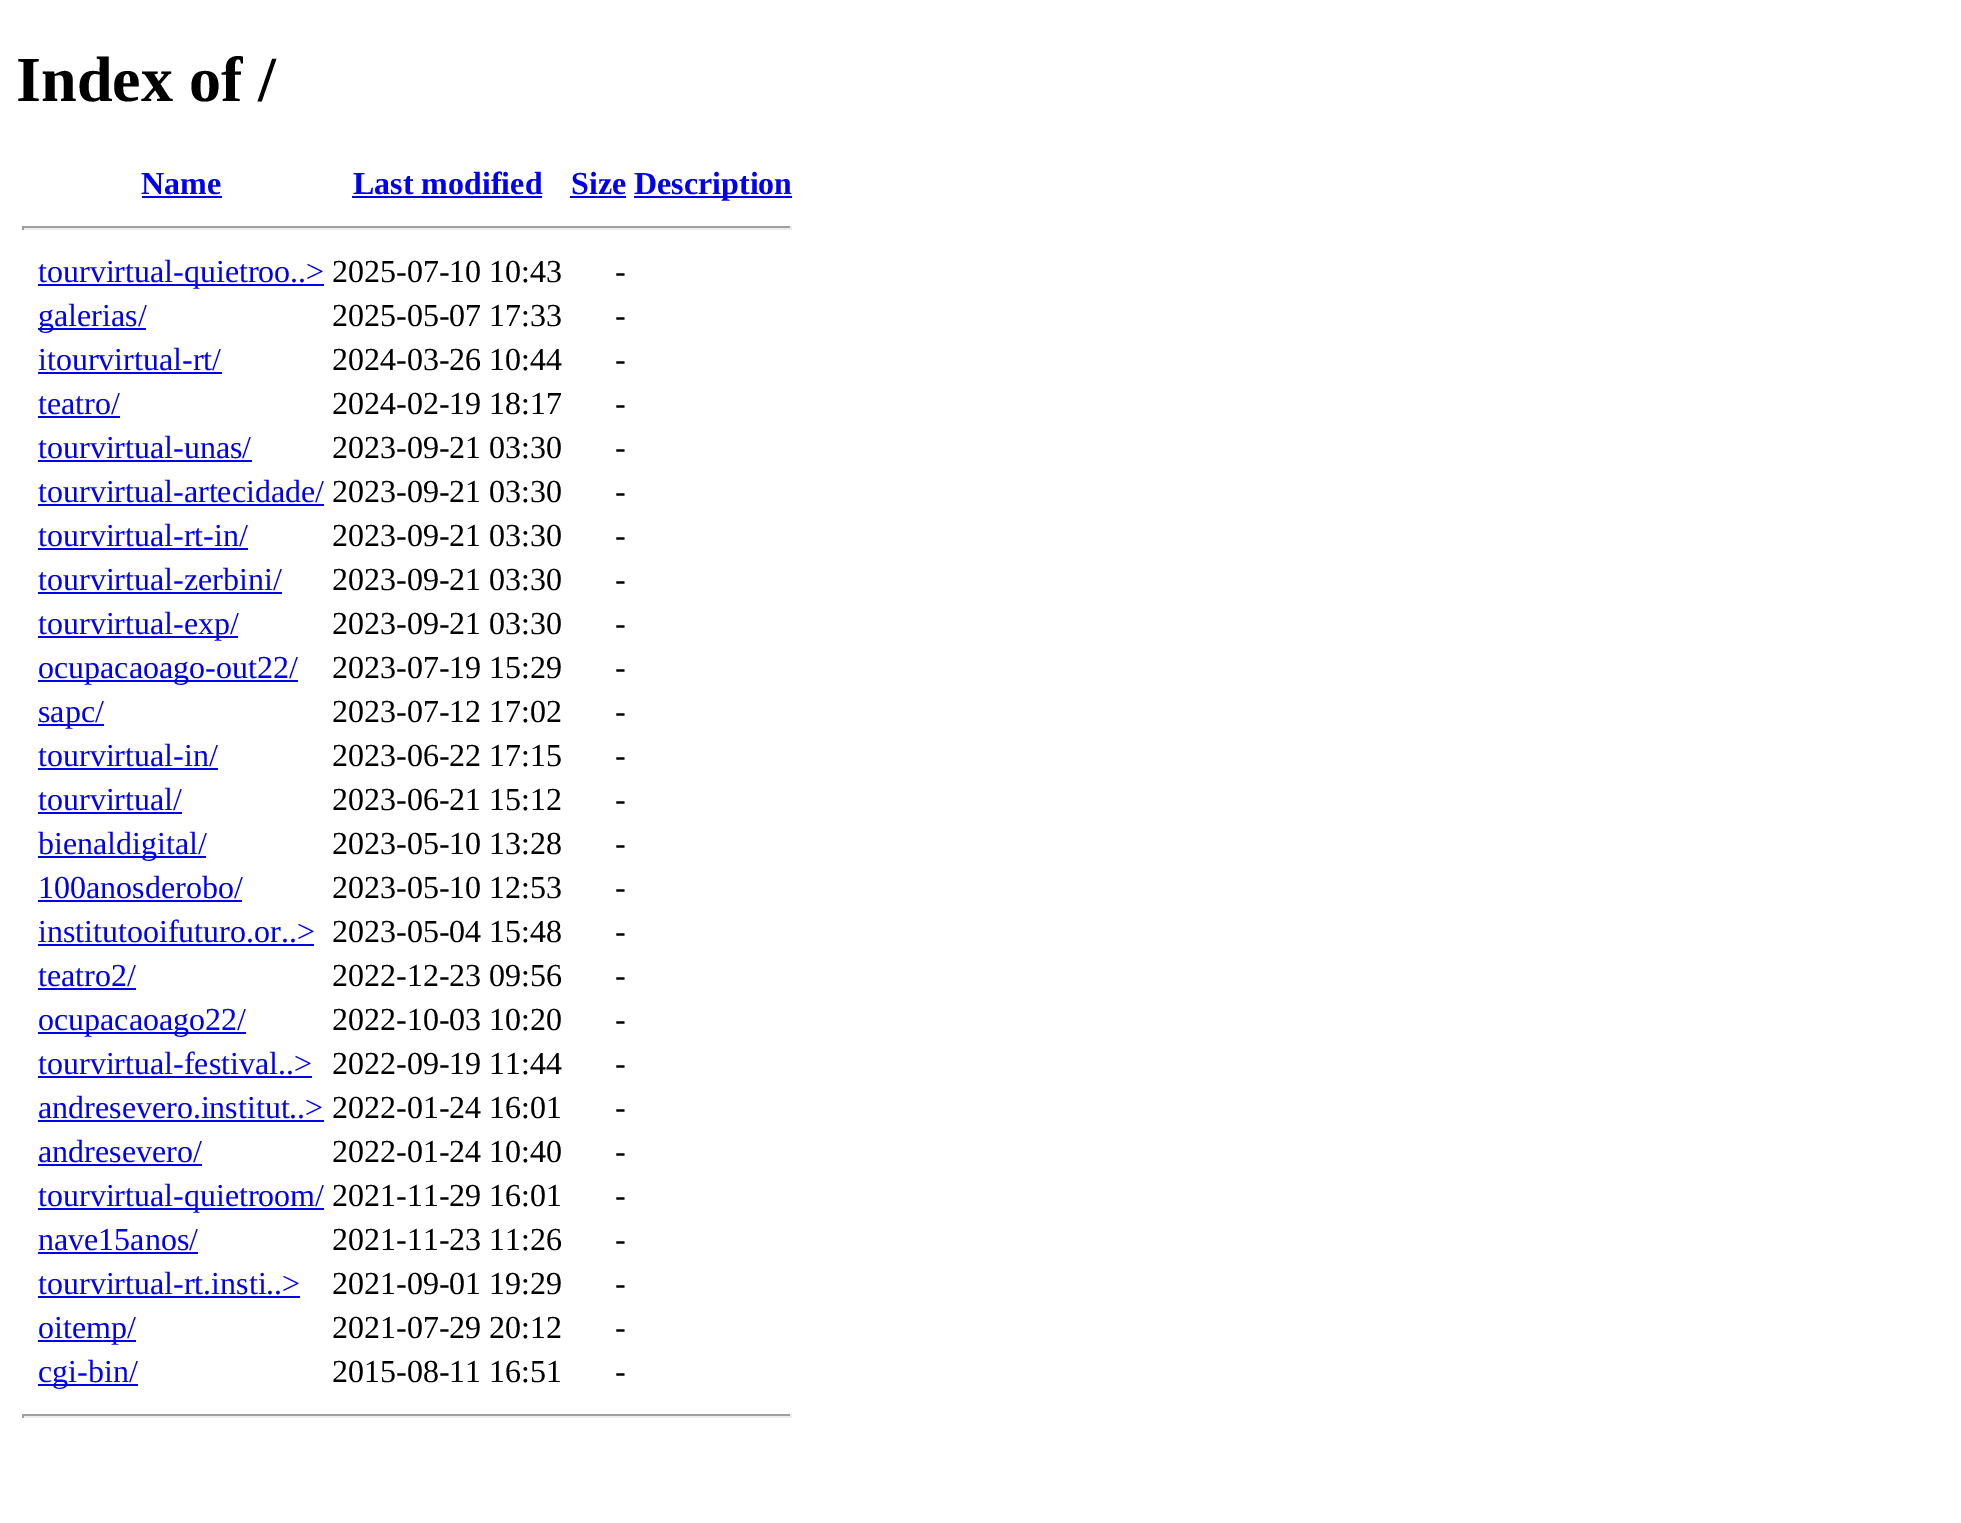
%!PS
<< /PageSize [1961 1523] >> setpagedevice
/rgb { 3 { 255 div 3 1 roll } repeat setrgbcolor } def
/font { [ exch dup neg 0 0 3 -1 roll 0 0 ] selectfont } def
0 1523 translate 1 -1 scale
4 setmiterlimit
255 255 255 rgb
0 0 1961 1523 rectfill
[
  [142 196 80 2 0 0 238]
  [352 196 190 2 0 0 238]
  [570 196 56 2 0 0 238]
  [634 196 158 2 0 0 238]
  [22 226 770 2 159 159 159]
  [790 226 2 4 238 238 238]
  [22 228 770 2 238 238 238]
  [22 226 2 4 159 159 159]
  [38 284 286 2 0 0 238]
  [38 328 108 2 0 0 238]
  [38 372 184 2 0 0 238]
  [38 416 82 2 0 0 238]
  [38 460 214 2 0 0 238]
  [38 504 286 2 0 0 238]
  [38 548 210 2 0 0 238]
  [38 592 244 2 0 0 238]
  [38 636 200 2 0 0 238]
  [38 680 260 2 0 0 238]
  [38 724 66 2 0 0 238]
  [38 768 180 2 0 0 238]
  [38 812 144 2 0 0 238]
  [38 856 168 2 0 0 238]
  [38 900 204 2 0 0 238]
  [38 944 276 2 0 0 238]
  [38 988 98 2 0 0 238]
  [38 1032 208 2 0 0 238]
  [38 1076 274 2 0 0 238]
  [38 1120 286 2 0 0 238]
  [38 1164 164 2 0 0 238]
  [38 1208 286 2 0 0 238]
  [38 1252 160 2 0 0 238]
  [38 1296 262 2 0 0 238]
  [38 1340 98 2 0 0 238]
  [38 1384 100 2 0 0 238]
  [22 1414 770 2 159 159 159]
  [790 1414 2 4 238 238 238]
  [22 1416 770 2 238 238 238]
  [22 1414 2 4 159 159 159]
] { aload pop rgb rectfill } forall
/LiberationSerif-Bold 64 font
0 0 0 rgb
16 101 moveto (Index of /) show
/LiberationSerif-Bold 32 font
0 0 238 rgb
[
  [(Name) 141 194]
  [(Last modified) 353 194]
  [(Size) 571 194]
  [(Description) 634 194]
] { aload pop moveto show } forall
/LiberationSerif-Regular 32 font
38 282 moveto (tourvirtual-quietroo..>) show
0 0 0 rgb
332 282 moveto (2025-07-10 10:43) show
615 282 moveto (-) show
0 0 238 rgb
38 326 moveto (galerias/) show
0 0 0 rgb
332 326 moveto (2025-05-07 17:33) show
615 326 moveto (-) show
0 0 238 rgb
38 370 moveto (itourvirtual-rt/) show
0 0 0 rgb
332 370 moveto (2024-03-26 10:44) show
615 370 moveto (-) show
0 0 238 rgb
38 414 moveto (teatro/) show
0 0 0 rgb
332 414 moveto (2024-02-19 18:17) show
615 414 moveto (-) show
0 0 238 rgb
38 458 moveto (tourvirtual-unas/) show
0 0 0 rgb
332 458 moveto (2023-09-21 03:30) show
615 458 moveto (-) show
0 0 238 rgb
38 502 moveto (tourvirtual-artecidade/) show
0 0 0 rgb
332 502 moveto (2023-09-21 03:30) show
615 502 moveto (-) show
0 0 238 rgb
38 546 moveto (tourvirtual-rt-in/) show
0 0 0 rgb
332 546 moveto (2023-09-21 03:30) show
615 546 moveto (-) show
0 0 238 rgb
38 590 moveto (tourvirtual-zerbini/) show
0 0 0 rgb
332 590 moveto (2023-09-21 03:30) show
615 590 moveto (-) show
0 0 238 rgb
38 634 moveto (tourvirtual-exp/) show
0 0 0 rgb
332 634 moveto (2023-09-21 03:30) show
615 634 moveto (-) show
0 0 238 rgb
38 678 moveto (ocupacaoago-out22/) show
0 0 0 rgb
332 678 moveto (2023-07-19 15:29) show
615 678 moveto (-) show
0 0 238 rgb
38 722 moveto (sapc/) show
0 0 0 rgb
332 722 moveto (2023-07-12 17:02) show
615 722 moveto (-) show
0 0 238 rgb
38 766 moveto (tourvirtual-in/) show
0 0 0 rgb
332 766 moveto (2023-06-22 17:15) show
615 766 moveto (-) show
0 0 238 rgb
38 810 moveto (tourvirtual/) show
0 0 0 rgb
332 810 moveto (2023-06-21 15:12) show
615 810 moveto (-) show
0 0 238 rgb
38 854 moveto (bienaldigital/) show
0 0 0 rgb
332 854 moveto (2023-05-10 13:28) show
615 854 moveto (-) show
0 0 238 rgb
38 898 moveto (100anosderobo/) show
0 0 0 rgb
332 898 moveto (2023-05-10 12:53) show
615 898 moveto (-) show
0 0 238 rgb
38 942 moveto (institutooifuturo.or..>) show
0 0 0 rgb
332 942 moveto (2023-05-04 15:48) show
615 942 moveto (-) show
0 0 238 rgb
38 986 moveto (teatro2/) show
0 0 0 rgb
332 986 moveto (2022-12-23 09:56) show
615 986 moveto (-) show
0 0 238 rgb
38 1030 moveto (ocupacaoago22/) show
0 0 0 rgb
332 1030 moveto (2022-10-03 10:20) show
615 1030 moveto (-) show
0 0 238 rgb
38 1074 moveto (tourvirtual-festival..>) show
0 0 0 rgb
332 1074 moveto (2022-09-19 11:44) show
615 1074 moveto (-) show
0 0 238 rgb
38 1118 moveto (andresevero.institut..>) show
0 0 0 rgb
332 1118 moveto (2022-01-24 16:01) show
615 1118 moveto (-) show
0 0 238 rgb
38 1162 moveto (andresevero/) show
0 0 0 rgb
332 1162 moveto (2022-01-24 10:40) show
615 1162 moveto (-) show
0 0 238 rgb
38 1206 moveto (tourvirtual-quietroom/) show
0 0 0 rgb
332 1206 moveto (2021-11-29 16:01) show
615 1206 moveto (-) show
0 0 238 rgb
38 1250 moveto (nave15anos/) show
0 0 0 rgb
332 1250 moveto (2021-11-23 11:26) show
615 1250 moveto (-) show
0 0 238 rgb
38 1294 moveto (tourvirtual-rt.insti..>) show
0 0 0 rgb
332 1294 moveto (2021-09-01 19:29) show
615 1294 moveto (-) show
0 0 238 rgb
38 1338 moveto (oitemp/) show
0 0 0 rgb
332 1338 moveto (2021-07-29 20:12) show
615 1338 moveto (-) show
0 0 238 rgb
38 1382 moveto (cgi-bin/) show
0 0 0 rgb
332 1382 moveto (2015-08-11 16:51) show
615 1382 moveto (-) show
showpage
